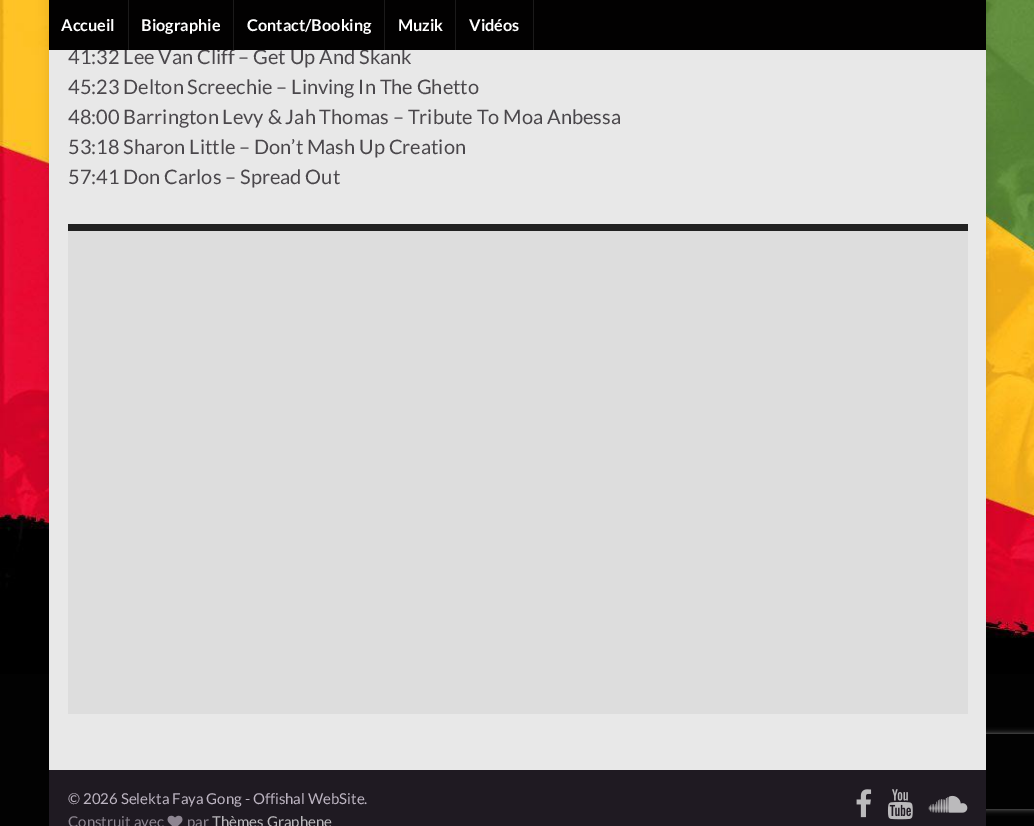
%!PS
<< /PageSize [1034 826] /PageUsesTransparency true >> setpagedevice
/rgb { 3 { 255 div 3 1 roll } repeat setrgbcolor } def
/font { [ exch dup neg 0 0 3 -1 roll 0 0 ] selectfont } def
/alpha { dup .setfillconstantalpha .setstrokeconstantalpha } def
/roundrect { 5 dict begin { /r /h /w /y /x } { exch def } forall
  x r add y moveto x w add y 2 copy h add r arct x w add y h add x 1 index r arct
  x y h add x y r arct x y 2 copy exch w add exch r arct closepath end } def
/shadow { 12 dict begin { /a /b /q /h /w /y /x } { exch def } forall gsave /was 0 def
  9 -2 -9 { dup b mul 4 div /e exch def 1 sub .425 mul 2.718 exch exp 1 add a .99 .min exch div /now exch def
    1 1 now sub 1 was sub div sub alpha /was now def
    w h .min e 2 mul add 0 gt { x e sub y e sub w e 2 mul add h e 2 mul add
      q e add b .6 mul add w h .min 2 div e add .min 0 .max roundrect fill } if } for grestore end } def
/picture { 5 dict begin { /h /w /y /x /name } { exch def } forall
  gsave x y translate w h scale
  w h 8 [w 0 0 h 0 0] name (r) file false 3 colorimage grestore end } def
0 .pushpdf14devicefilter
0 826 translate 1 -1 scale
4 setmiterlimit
2 2 2 rgb
0 0 1034 826 rectfill
(img/1.rgb) 0 0 1034 674 picture
0 0 0 rgb
49 -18 937 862 0 6 0.1 shadow
gsave
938 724 moveto 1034 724 lineto 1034 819 lineto 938 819 lineto closepath 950.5 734 moveto 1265.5 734 lineto 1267 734 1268 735 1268 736.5 curveto 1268 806.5 lineto 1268 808 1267 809 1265.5 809 curveto 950.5 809 lineto 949 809 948 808 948 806.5 curveto 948 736.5 lineto 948 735 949 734 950.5 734 curveto closepath eoclip newpath
128 128 128 rgb
948 734 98 75 2.5 3 1 shadow
grestore
[
  [49 50 937 720 232 232 232]
  [68 231 900 483 221 221 221]
  [68 224 900 7 33 33 33]
  [49 770 937 56 31 26 34]
] { aload pop rgb rectfill } forall
(img/2.rgb) 167 815 16 11 picture
(img/3.rgb) 856 789 16 29 picture
(img/4.rgb) 887 789 26 31 picture
(img/5.rgb) 928 795 40 18 picture
/Lato-Regular 20 font
74 71 75 rgb
68 64 moveto (41:32 Lee Van Cliff – Get Up And Skank) show
2 1 1 rgb
49 0 937 50 rectfill
/Lato-Bold 16.25 font
255 255 255 rgb
469 31 moveto (Vidéos) show
27 26 26 rgb
533 0 1 50 rectfill
255 255 255 rgb
398 31 moveto (Muzik) show
27 26 26 rgb
455 0 1 50 rectfill
255 255 255 rgb
247 31 moveto (Contact/Booking) show
27 26 26 rgb
384 0 1 50 rectfill
255 255 255 rgb
141 31 moveto (Biographie) show
27 26 26 rgb
233 0 1 50 rectfill
255 255 255 rgb
61 31 moveto (Accueil) show
27 26 26 rgb
128 0 1 50 rectfill
/Lato-Regular 20 font
74 71 75 rgb
[
  [(45:23 Delton Screechie – Linving In The Ghetto) 68 94]
  [(48:00 Barrington Levy & Jah Thomas – Tribute To Moa Anbessa) 68 124]
  [(53:18 Sharon Little – Don’t Mash Up Creation) 68 154]
  [(57:41 Don Carlos – Spread Out) 68 184]
] { aload pop moveto show } forall
/Lato-Regular 15 font
188 180 193 rgb
68 804 moveto (© 2026 Selekta Faya Gong - Offishal WebSite.) show
141 134 145 rgb
68 827 moveto (Construit avec) show
187 827 moveto (par) show
188 186 189 rgb
212 827 moveto (Thèmes Graphene) show
.poppdf14devicefilter showpage
